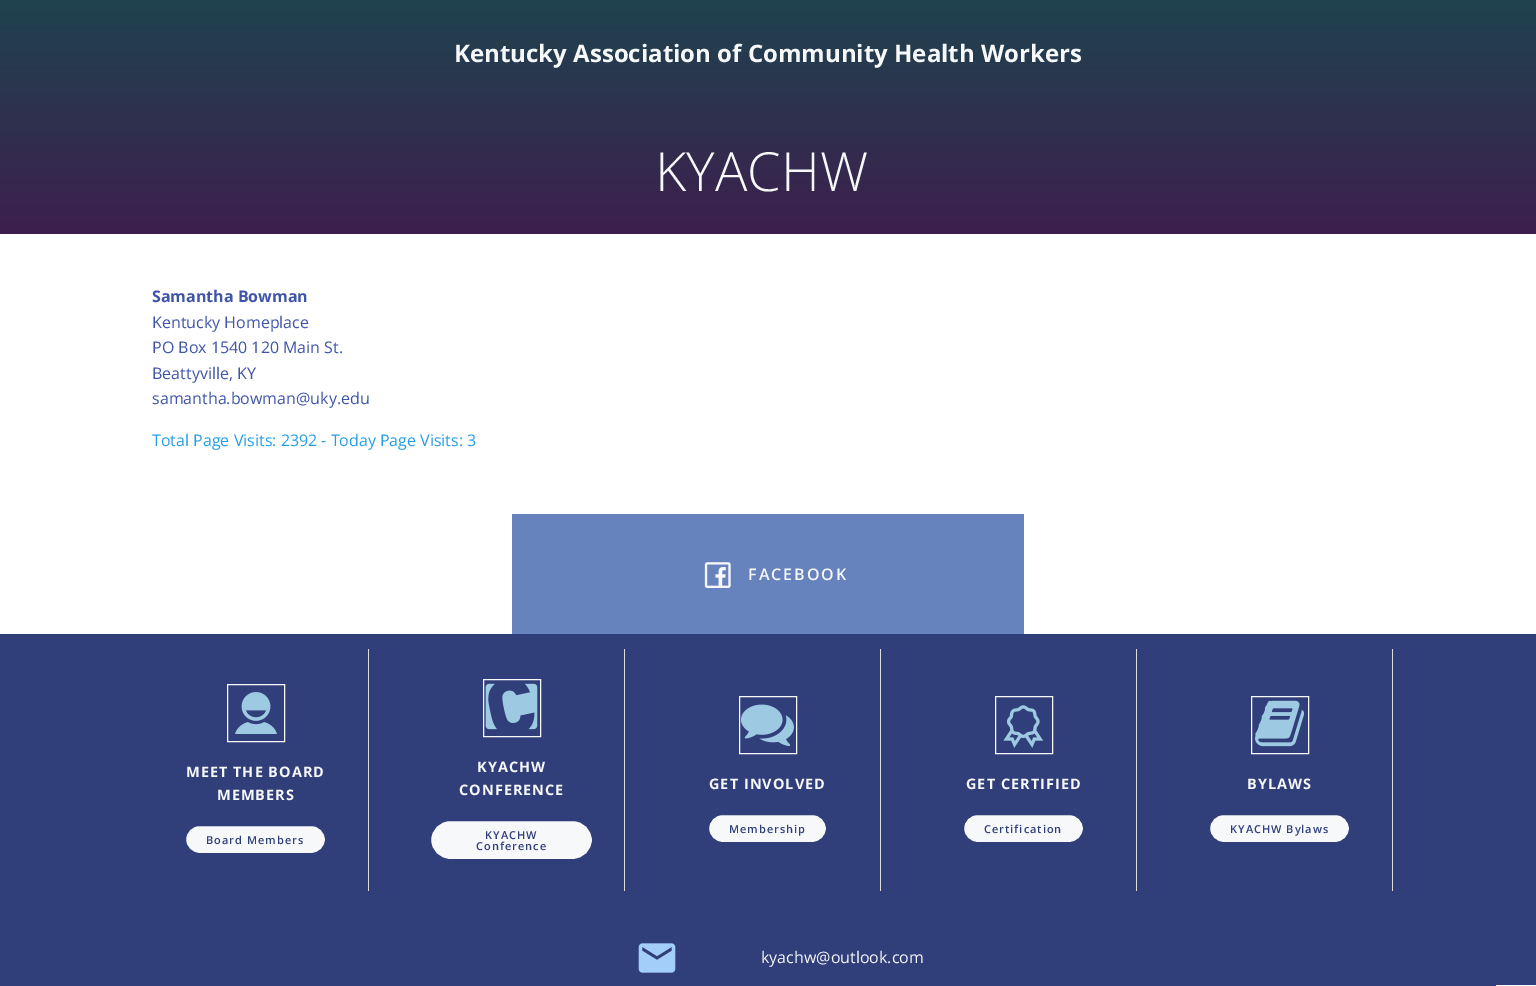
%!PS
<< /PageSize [1536 986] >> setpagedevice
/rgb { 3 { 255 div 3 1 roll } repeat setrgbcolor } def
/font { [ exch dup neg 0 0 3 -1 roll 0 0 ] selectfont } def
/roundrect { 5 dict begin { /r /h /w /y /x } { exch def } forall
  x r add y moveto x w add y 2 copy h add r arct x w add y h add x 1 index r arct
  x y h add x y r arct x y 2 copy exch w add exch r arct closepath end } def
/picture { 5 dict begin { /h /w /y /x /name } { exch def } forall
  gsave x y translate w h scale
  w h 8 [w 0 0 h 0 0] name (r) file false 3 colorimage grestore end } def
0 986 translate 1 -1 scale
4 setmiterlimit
255 255 255 rgb
0 0 1536 986 rectfill
gsave 0 0 moveto 1536 0 lineto 1536 234 lineto 0 234 lineto closepath clip newpath
<< /ShadingType 2 /ColorSpace /DeviceRGB /Coords [768 234 768 0] /Extend [true true] /Function << /FunctionType 2 /Domain [0 1] /C0 [0.239 0.122 0.306] /C1 [0.122 0.263 0.306] /N 1 >> >> shfill grestore
102 131 189 rgb
512 514 512 120 rectfill
(img/1.rgb) 704 562 27 26 picture
48 62 122 rgb
0 634 1536 352 rectfill
221 221 221 rgb
368 649 1 242 rectfill
246 248 250 rgb
227.5 684.5 57 57 rectstroke
(img/2.rgb) 235 692 42 42 picture
185 825 141 29 14.5 roundrect gsave fill grestore
48 62 122 rgb
2 setlinewidth
stroke
221 221 221 rgb
624 649 1 242 rectfill
246 248 250 rgb
1 setlinewidth
483.5 679.5 57 57 rectstroke
(img/3.rgb) 485 683 53 47 picture
430 820 163 40 20 roundrect gsave fill grestore
48 62 122 rgb
2 setlinewidth
stroke
221 221 221 rgb
880 649 1 242 rectfill
246 248 250 rgb
1 setlinewidth
739.5 696.5 57 57 rectstroke
(img/4.rgb) 741 704 53 43 picture
708 814 119 29 14.5 roundrect gsave fill grestore
48 62 122 rgb
2 setlinewidth
stroke
221 221 221 rgb
1136 649 1 242 rectfill
246 248 250 rgb
1 setlinewidth
995.5 696.5 57 57 rectstroke
(img/5.rgb) 1003 705 41 43 picture
963 814 121 29 14.5 roundrect gsave fill grestore
48 62 122 rgb
2 setlinewidth
stroke
221 221 221 rgb
1392 649 1 242 rectfill
246 248 250 rgb
1 setlinewidth
1251.5 696.5 57 57 rectstroke
(img/6.rgb) 1255 700 49 47 picture
1209 814 141 29 14.5 roundrect gsave fill grestore
48 62 122 rgb
2 setlinewidth
stroke
(img/7.rgb) 638 943 38 30 picture
246 248 250 rgb
1496 985 40 1 rectfill
/OpenSans-Bold 24 font
454 62 moveto (Kentucky Association of Community Health Workers) show
/OpenSans-Light 54 font
655 191 moveto (KYACHW) show
/OpenSans-Bold 16 font
64 85 169 rgb
152 302 moveto (Samantha Bowman) show
/OpenSans-Regular 16 font
[
  [(Kentucky Homeplace) 152 328]
  [(PO Box 1540 120 Main St.) 152 353]
  [(Beattyville, KY) 152 379]
  [(samantha.bowman@uky.edu) 152 404]
] { aload pop moveto show } forall
36 158 229 rgb
152 446 moveto (Total Page Visits: 2392 - Today Page Visits: 3) show
/OpenSans-SemiBold 16 font
246 248 250 rgb
748 580 moveto 2 0 (FACEBOOK) ashow
/OpenSans-Bold 14.5 font
186 777 moveto 1 0 (MEET THE BOARD) ashow
217 800 moveto 1 0 (MEMBERS) ashow
/OpenSans-SemiBold 11 font
48 62 122 rgb
206 844 moveto 1 0 (Board Members) ashow
/OpenSans-Bold 14.5 font
246 248 250 rgb
477 772 moveto 1 0 (KYACHW) ashow
459 795 moveto 1 0 (CONFERENCE) ashow
/OpenSans-SemiBold 11 font
48 62 122 rgb
485 839 moveto 1 0 (KYACHW) ashow
476 850 moveto 1 0 (Conference) ashow
/OpenSans-Bold 14.5 font
246 248 250 rgb
709 789 moveto 1 0 (GET INVOLVED) ashow
/OpenSans-SemiBold 11 font
48 62 122 rgb
729 833 moveto 1 0 (Membership) ashow
/OpenSans-Bold 14.5 font
246 248 250 rgb
966 789 moveto 1 0 (GET CERTIFIED) ashow
/OpenSans-SemiBold 11 font
48 62 122 rgb
984 833 moveto 1 0 (Certification) ashow
/OpenSans-Bold 14.5 font
246 248 250 rgb
1247 789 moveto 1 0 (BYLAWS) ashow
/OpenSans-SemiBold 11 font
48 62 122 rgb
1230 833 moveto 1 0 (KYACHW Bylaws) ashow
/OpenSans-Regular 16 font
246 248 250 rgb
761 963 moveto (kyachw@outlook.com) show
showpage
